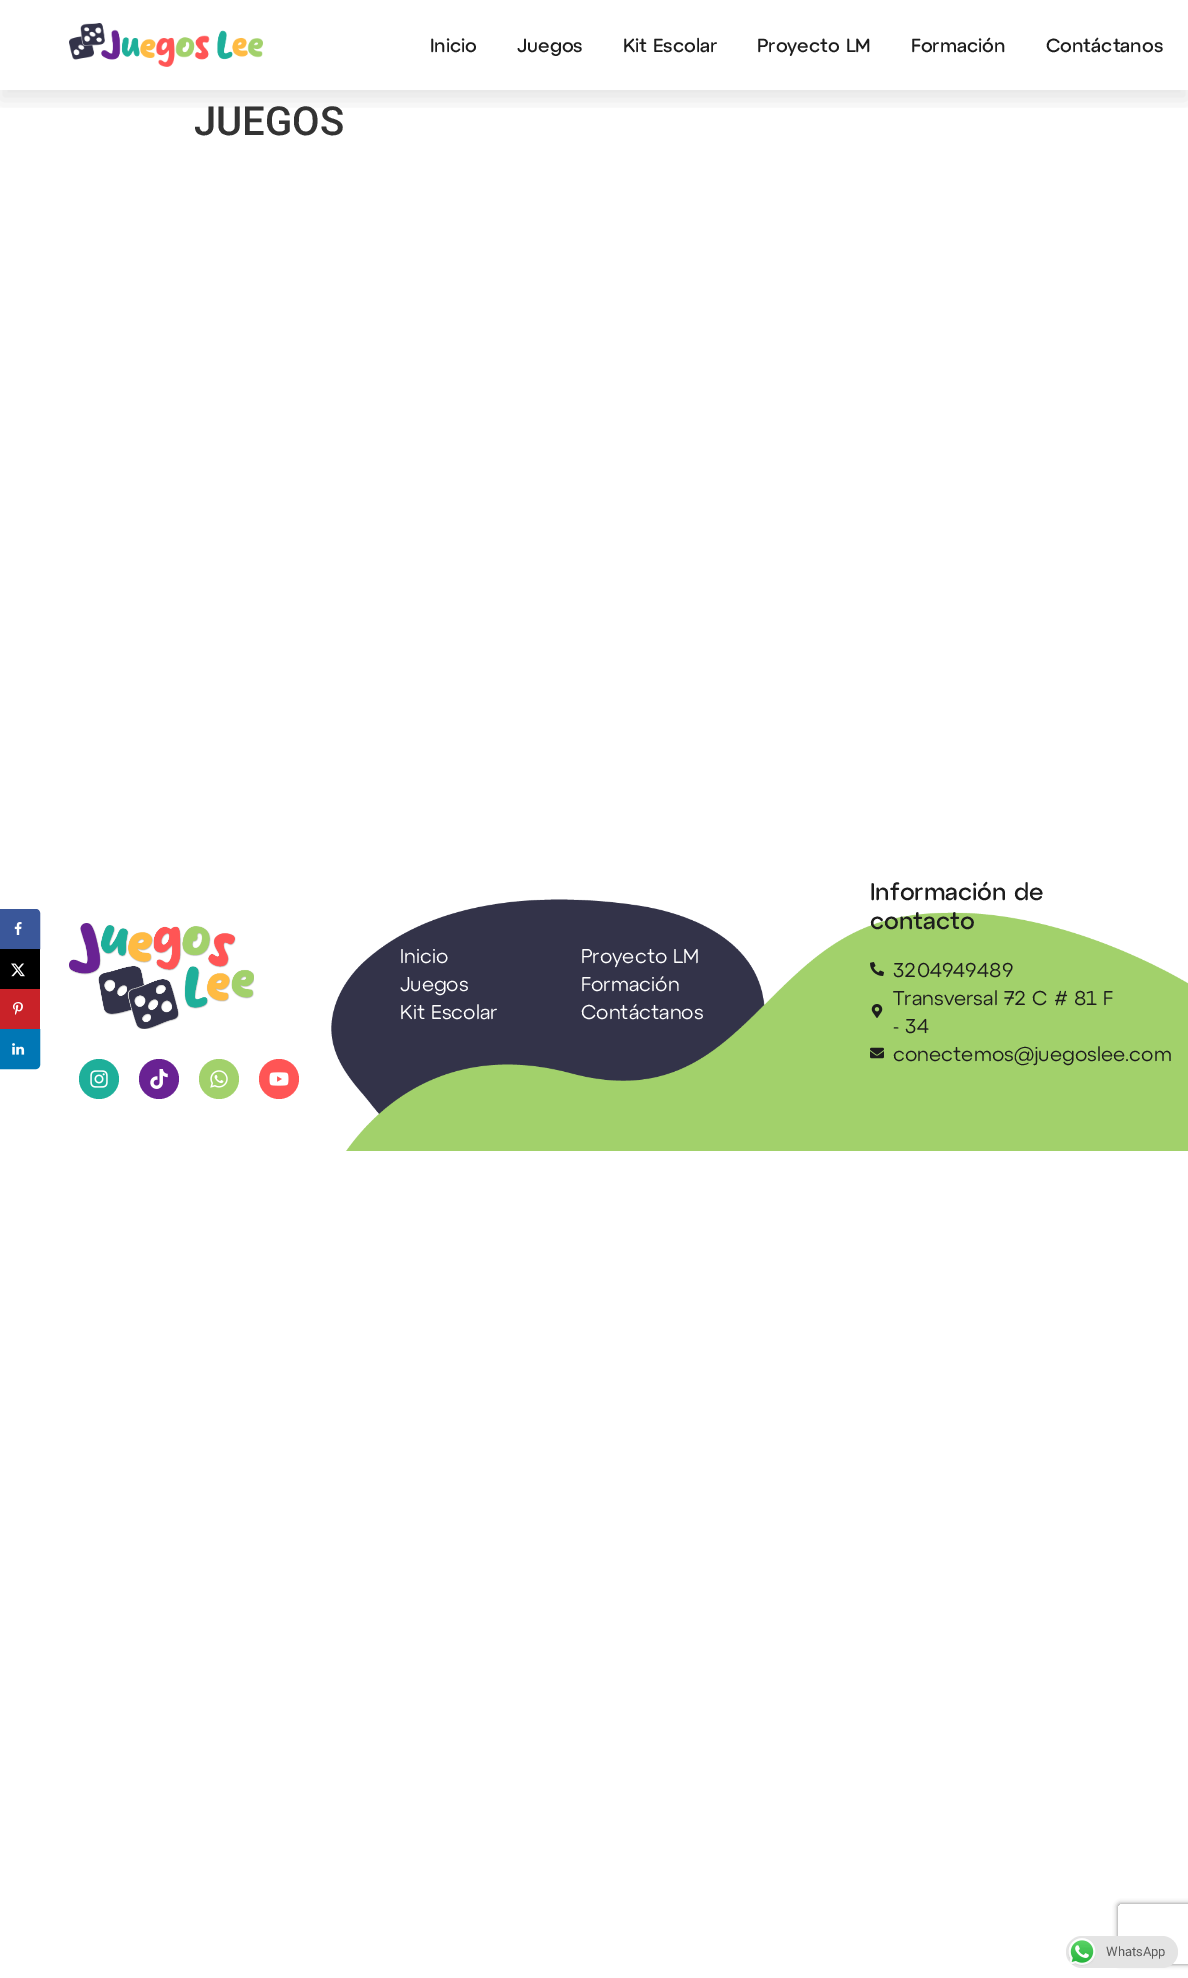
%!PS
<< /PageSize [1188 1978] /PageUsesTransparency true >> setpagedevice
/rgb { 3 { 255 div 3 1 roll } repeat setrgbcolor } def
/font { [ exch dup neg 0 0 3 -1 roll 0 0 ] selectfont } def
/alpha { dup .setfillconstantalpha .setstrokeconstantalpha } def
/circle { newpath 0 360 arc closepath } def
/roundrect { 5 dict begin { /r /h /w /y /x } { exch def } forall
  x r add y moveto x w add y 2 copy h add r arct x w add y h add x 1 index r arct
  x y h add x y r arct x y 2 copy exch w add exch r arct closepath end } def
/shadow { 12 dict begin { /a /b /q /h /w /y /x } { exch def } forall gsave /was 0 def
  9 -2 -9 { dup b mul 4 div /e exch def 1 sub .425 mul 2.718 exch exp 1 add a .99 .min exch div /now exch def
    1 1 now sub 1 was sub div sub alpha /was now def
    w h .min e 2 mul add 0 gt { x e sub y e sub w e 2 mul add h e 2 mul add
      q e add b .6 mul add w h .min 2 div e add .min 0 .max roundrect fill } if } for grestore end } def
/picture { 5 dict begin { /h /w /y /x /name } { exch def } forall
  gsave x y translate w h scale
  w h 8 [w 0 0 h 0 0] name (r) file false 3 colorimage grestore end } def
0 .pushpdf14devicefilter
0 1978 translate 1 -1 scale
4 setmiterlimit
255 255 255 rgb
0 0 1188 1978 rectfill
gsave
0 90 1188 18 rectclip
0 0 0 rgb
0 10 1188 90 0 10 0.1 shadow
grestore
(img/1.rgb) 69 23 194 44 picture
58 87 154 rgb
1 910 moveto 36 910 lineto 37.5 910 39 911.5 39 913 curveto 39 948 lineto 1 948 lineto closepath gsave fill grestore
2 setlinewidth
stroke
(img/2.rgb) 14 922 8 13 picture
0 0 0 rgb
0 949 40 40 rectfill
(img/3.rgb) 11 963 14 14 picture
201 34 40 rgb
0 989 40 40 rectfill
(img/4.rgb) 13 1002 10 13 picture
0 119 181 rgb
1 1030 moveto 39 1030 lineto 39 1065 lineto 39 1066.5 37.5 1068 36 1068 curveto 1 1068 lineto closepath gsave fill grestore
stroke
(img/5.rgb) 12 1043 13 12 picture
(img/6.rgb) 331 899 857 252 picture
(img/7.rgb) 69 923 185 106 picture
30 175 154 rgb
99 1079 20 circle fill
(img/8.rgb) 90 1070 18 18 picture
105 34 147 rgb
159 1079 20 circle fill
(img/9.rgb) 150 1069 18 20 picture
162 209 107 rgb
219 1079 20 circle fill
(img/10.rgb) 210 1070 18 18 picture
255 85 85 rgb
279 1079 20 circle fill
(img/11.rgb) 269 1072 20 14 picture
(img/12.rgb) 870 962 14 14 picture
(img/13.rgb) 871 1004 12 14 picture
(img/14.rgb) 870 1047 14 12 picture
gsave
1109 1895 moveto 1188 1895 lineto 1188 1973 lineto 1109 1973 lineto closepath 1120 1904 moveto 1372 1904 lineto 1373 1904 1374 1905 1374 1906 curveto 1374 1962 lineto 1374 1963 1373 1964 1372 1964 curveto 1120 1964 lineto 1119 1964 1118 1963 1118 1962 curveto 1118 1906 lineto 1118 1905 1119 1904 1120 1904 curveto closepath eoclip newpath
128 128 128 rgb
1118 1904 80 60 2 2.5 1 shadow
grestore
228 228 228 rgb
1066 1936 112 32 16 roundrect fill
(img/15.rgb) 1068 1938 28 28 picture
/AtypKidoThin-Medium 19 font
29 29 29 rgb
[
  [(Inicio) 430 52]
  [(Juegos) 517 52]
  [(Kit Escolar) 623 52]
  [(Proyecto LM) 757 52]
  [(Formación) 911 52]
  [(Contáctanos) 1046 52]
] { aload pop moveto show } forall
/Roboto-Medium 40 font
51 51 51 rgb
194 135 moveto (JUEGOS) show
/AtypKidoThin-Regular 20 font
255 255 255 rgb
[
  [(Inicio) 400 963]
  [(Juegos) 400 991]
  [(Kit Escolar) 400 1019]
  [(Proyecto LM) 581 963]
  [(Formación) 581 991]
  [(Contáctanos) 581 1019]
] { aload pop moveto show } forall
/AtypKidoThin-Medium 24 font
29 29 29 rgb
870 900 moveto (Información de) show
870 929 moveto (contacto) show
/AtypKidoThin-Regular 20 font
[
  [(3204949489) 893 977]
  [(Transversal 72 C # 81 F) 893 1005]
  [(- 34) 893 1033]
  [(conectemos@juegoslee.com) 893 1061]
] { aload pop moveto show } forall
/Roboto-Regular 13 font
91 91 91 rgb
1106 1956 moveto (WhatsApp) show
.poppdf14devicefilter showpage
